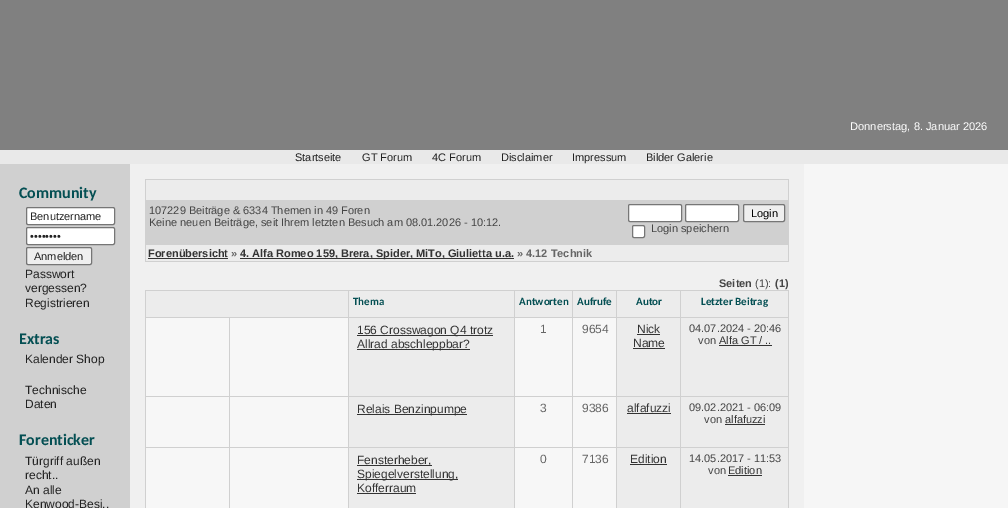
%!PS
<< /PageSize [1008 508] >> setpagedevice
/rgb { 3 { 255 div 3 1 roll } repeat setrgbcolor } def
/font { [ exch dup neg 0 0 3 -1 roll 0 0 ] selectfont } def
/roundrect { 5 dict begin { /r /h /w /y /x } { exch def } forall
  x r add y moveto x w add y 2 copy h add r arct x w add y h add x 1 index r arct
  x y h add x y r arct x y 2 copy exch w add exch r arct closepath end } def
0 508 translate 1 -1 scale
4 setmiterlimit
246 246 246 rgb
0 0 1008 508 rectfill
[
  [0 0 1008 150 128 128 128]
  [0 150 1008 14 233 233 233]
  [0 164 130 344 208 208 208]
] { aload pop rgb rectfill } forall
255 255 255 rgb
26.5 207.5 88 17 1.5 roundrect gsave fill grestore
118 118 118 rgb
stroke
255 255 255 rgb
26.5 227.5 88 17 1.5 roundrect gsave fill grestore
118 118 118 rgb
stroke
239 239 239 rgb
26.5 247.5 65 17 1.5 roundrect gsave fill grestore
118 118 118 rgb
stroke
[
  [130 164 674 344 240 240 240]
  [145 179 644 83 208 208 208]
  [146 180 642 20 236 236 236]
] { aload pop rgb rectfill } forall
255 255 255 rgb
628.5 204.5 53 17 1.5 roundrect gsave fill grestore
118 118 118 rgb
stroke
255 255 255 rgb
685.5 204.5 53 17 1.5 roundrect gsave fill grestore
118 118 118 rgb
stroke
239 239 239 rgb
743.5 204.5 41 17 1.5 roundrect gsave fill grestore
118 118 118 rgb
stroke
255 255 255 rgb
632.5 225.5 12 12 1.5 roundrect gsave fill grestore
118 118 118 rgb
stroke
[
  [146 245 642 16 236 236 236]
  [148 258 80 1 51 51 51]
  [240 258 274 1 51 51 51]
  [145 290 644 218 208 208 208]
  [146 291 202 26 236 236 236]
  [349 291 165 26 236 236 236]
  [515 291 57 26 236 236 236]
  [573 291 43 26 236 236 236]
  [617 291 63 26 236 236 236]
  [681 291 107 26 236 236 236]
  [146 318 83 78 247 247 247]
  [230 318 118 78 247 247 247]
  [349 318 165 78 236 236 236]
  [357 335 136 1 51 51 51]
  [357 349 113 1 51 51 51]
  [515 318 57 78 247 247 247]
  [573 318 43 78 247 247 247]
  [617 318 63 78 236 236 236]
  [637 334 23 1 51 51 51]
  [633 348 32 1 51 51 51]
  [681 318 107 78 236 236 236]
  [719 345 53 1 51 51 51]
  [146 397 83 50 247 247 247]
  [230 397 118 50 247 247 247]
  [349 397 165 50 236 236 236]
  [357 414 110 1 51 51 51]
  [515 397 57 50 247 247 247]
  [573 397 43 50 247 247 247]
  [617 397 63 50 236 236 236]
  [627 413 44 1 51 51 51]
  [681 397 107 50 236 236 236]
  [725 424 40 1 51 51 51]
  [146 448 83 60 247 247 247]
  [230 448 118 60 247 247 247]
  [349 448 165 60 236 236 236]
  [357 465 75 1 51 51 51]
  [357 479 101 1 51 51 51]
  [357 493 59 1 51 51 51]
  [515 448 57 60 247 247 247]
  [573 448 43 60 247 247 247]
  [617 448 63 60 236 236 236]
  [630 464 37 1 51 51 51]
  [681 448 107 60 236 236 236]
  [728 475 34 1 51 51 51]
] { aload pop rgb rectfill } forall
/LiberationSans-Regular 11.1 font
255 255 255 rgb
850 130 moveto (Donnerstag, 8. Januar 2026) show
/LiberationSans-Regular 11 font
34 34 34 rgb
[
  [(Startseite) 295 161]
  [(GT Forum) 362 161]
  [(4C Forum) 432 161]
  [(Disclaimer) 501 161]
  [(Impressum) 572 161]
  [(Bilder Galerie) 646 161]
] { aload pop moveto show } forall
/Carlito-Bold 16 font
4 79 83 rgb
19 198 moveto (Community) show
/LiberationSans-Regular 11 font
34 34 34 rgb
[
  [(Benutzername) 30 220]
  [(••••••••) 30 240]
  [(Anmelden) 34 260]
] { aload pop moveto show } forall
/LiberationSans-Regular 12 font
[
  [(Passwort) 25 278]
  [(vergessen?) 25 292]
  [(Registrieren) 25 307]
] { aload pop moveto show } forall
/Carlito-Bold 16 font
4 79 83 rgb
19 344 moveto (Extras) show
/LiberationSans-Regular 12 font
34 34 34 rgb
[
  [(Kalender Shop) 25 363]
  [(Technische) 25 394]
  [(Daten) 25 408]
] { aload pop moveto show } forall
/Carlito-Bold 16 font
4 79 83 rgb
19 445 moveto (Forenticker) show
/LiberationSans-Regular 12 font
34 34 34 rgb
[
  [(Türgriff außen) 25 465]
  [(recht..) 25 479]
  [(An alle) 25 494]
  [(Kenwood-Besi..) 25 508]
] { aload pop moveto show } forall
/LiberationSans-Regular 11 font
69 69 69 rgb
149 214 moveto (107229 Beiträge & 6334 Themen in 49 Foren) show
149 226 moveto (Keine neuen Beiträge, seit Ihrem letzten Besuch am 08.01.2026 - 10:12.) show
0 0 0 rgb
751 217 moveto (Login) show
69 69 69 rgb
651 232 moveto (Login speichern) show
/LiberationSans-Bold 11 font
51 51 51 rgb
148 257 moveto (Forenübersicht) show
102 102 102 rgb
231 257 moveto (») show
51 51 51 rgb
240 257 moveto (4. Alfa Romeo 159, Brera, Spider, MiTo, Giulietta u.a.) show
102 102 102 rgb
517 257 moveto (» 4.12 Technik) show
69 69 69 rgb
719 287 moveto (Seiten) show
/LiberationSans-Regular 11 font
755 287 moveto (\(1\):) show
/LiberationSans-Bold 11 font
775 287 moveto (\(1\)) show
/Carlito-Bold 11 font
4 79 83 rgb
[
  [(Thema) 353 305]
  [(Antworten) 519 305]
  [(Aufrufe) 577 305]
  [(Autor) 636 305]
  [(Letzter Beitrag) 701 305]
] { aload pop moveto show } forall
/LiberationSans-Regular 12 font
51 51 51 rgb
357 334 moveto (156 Crosswagon Q4 trotz) show
357 348 moveto (Allrad abschleppbar?) show
102 102 102 rgb
540 333 moveto (1) show
582 333 moveto (9654) show
51 51 51 rgb
637 333 moveto (Nick) show
633 347 moveto (Name) show
/LiberationSans-Regular 11 font
69 69 69 rgb
689 332 moveto (04.07.2024 - 20:46) show
698 344 moveto (von) show
51 51 51 rgb
719 344 moveto (Alfa GT / ..) show
/LiberationSans-Regular 12 font
357 413 moveto (Relais Benzinpumpe) show
102 102 102 rgb
540 412 moveto (3) show
582 412 moveto (9386) show
51 51 51 rgb
627 412 moveto (alfafuzzi) show
/LiberationSans-Regular 11 font
69 69 69 rgb
689 411 moveto (09.02.2021 - 06:09) show
704 423 moveto (von) show
51 51 51 rgb
725 423 moveto (alfafuzzi) show
/LiberationSans-Regular 12 font
[
  [(Fensterheber,) 357 464]
  [(Spiegelverstellung,) 357 478]
  [(Kofferraum) 357 492]
] { aload pop moveto show } forall
102 102 102 rgb
540 463 moveto (0) show
582 463 moveto (7136) show
51 51 51 rgb
630 463 moveto (Edition) show
/LiberationSans-Regular 11 font
69 69 69 rgb
689 462 moveto (14.05.2017 - 11:53) show
708 474 moveto (von) show
51 51 51 rgb
728 474 moveto (Edition) show
showpage
